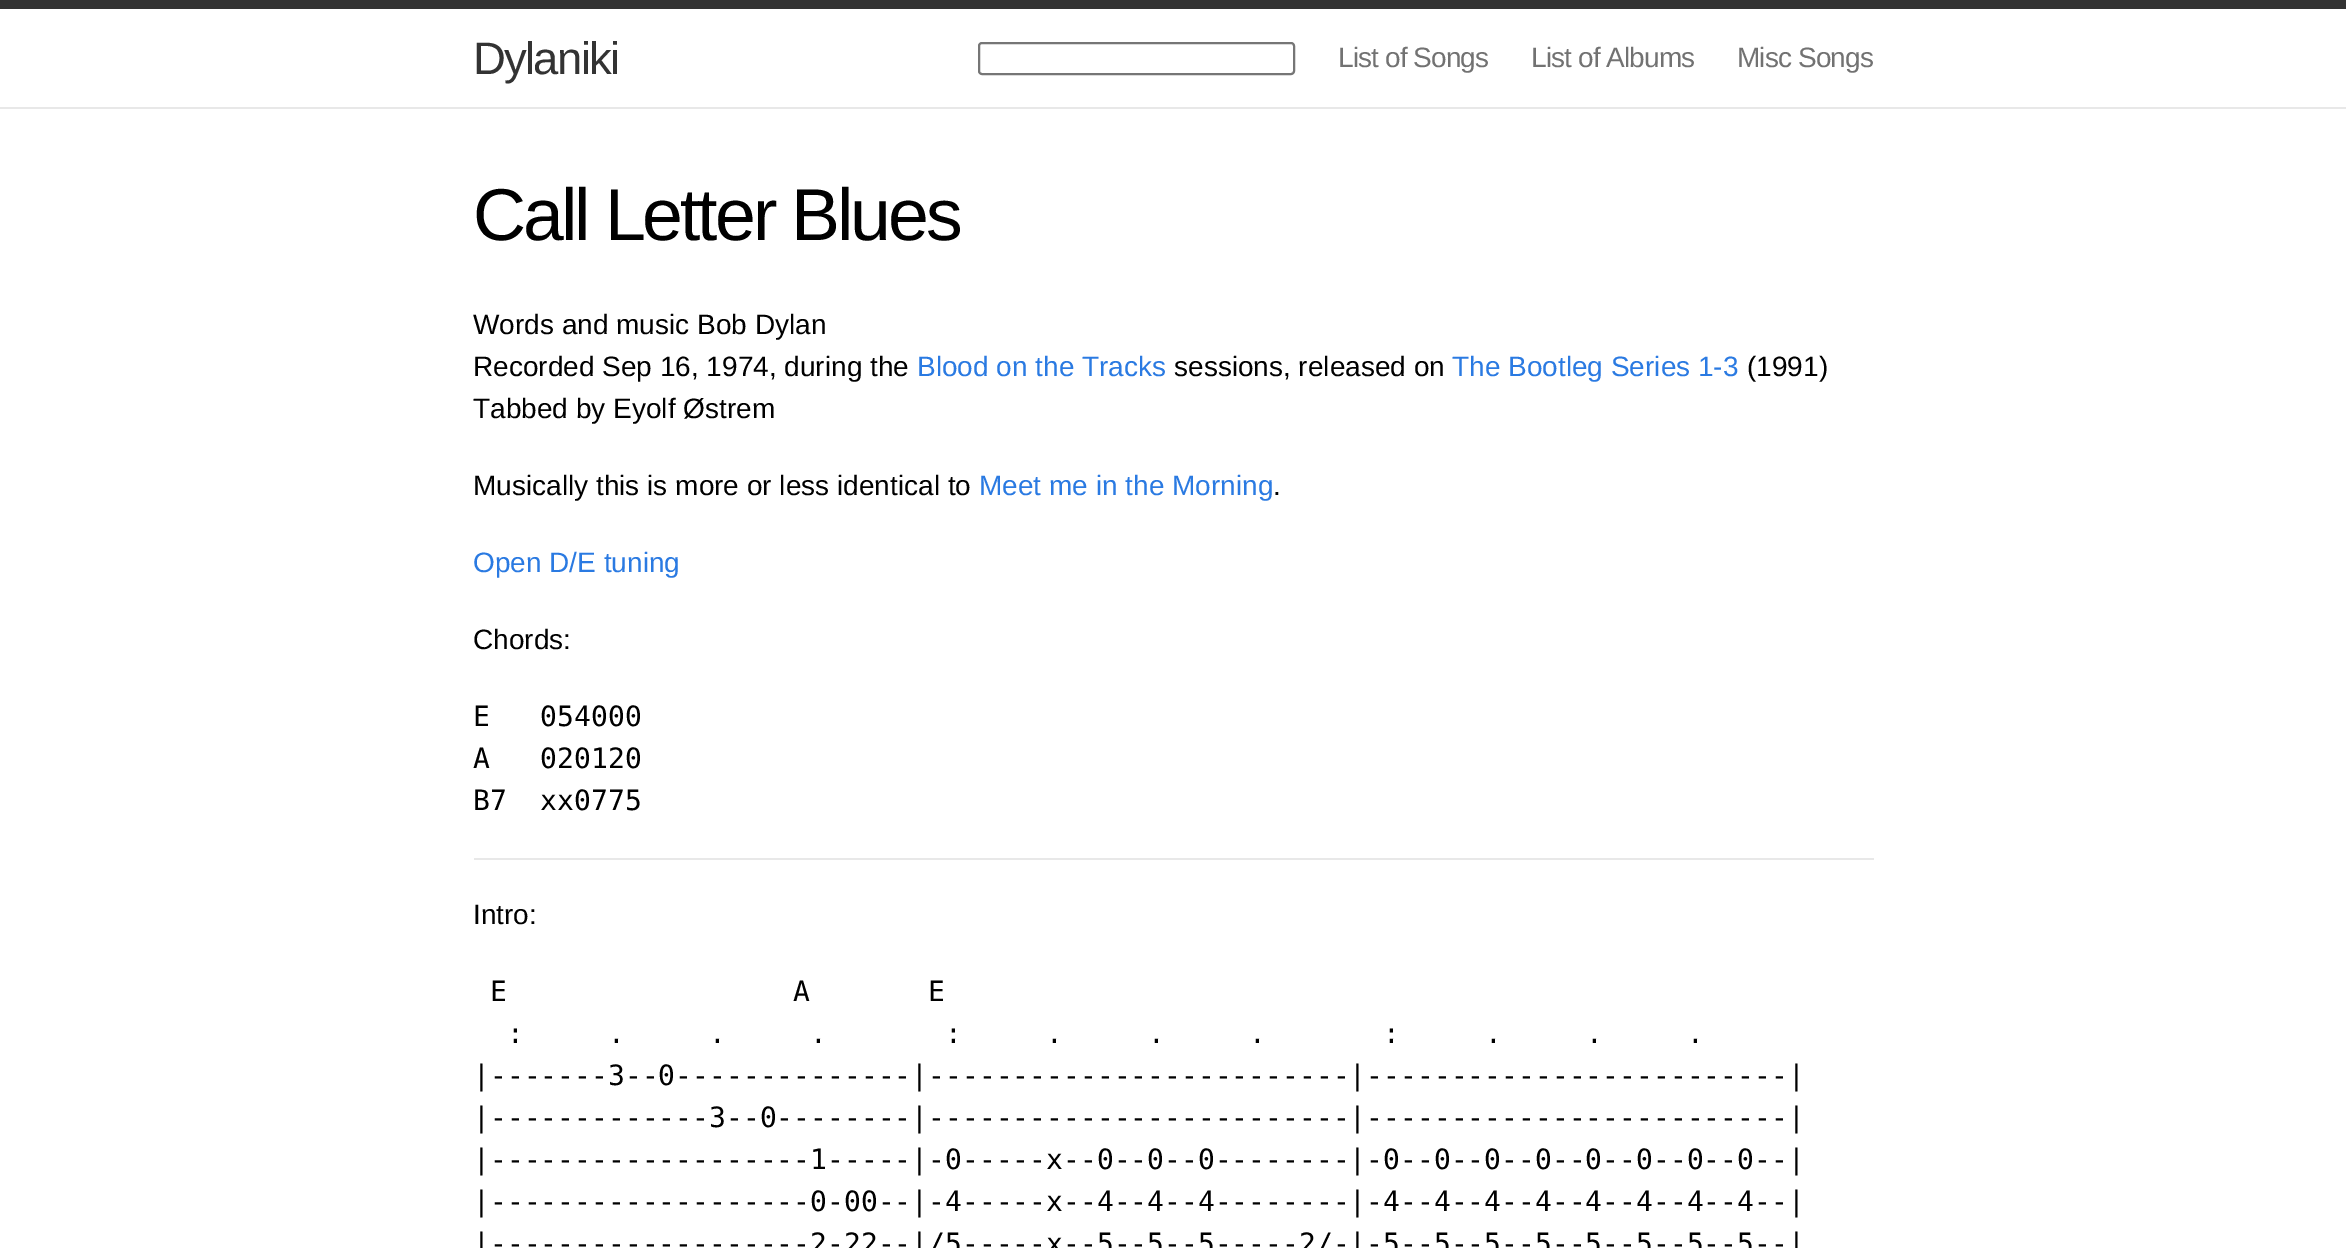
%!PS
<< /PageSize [2346 1248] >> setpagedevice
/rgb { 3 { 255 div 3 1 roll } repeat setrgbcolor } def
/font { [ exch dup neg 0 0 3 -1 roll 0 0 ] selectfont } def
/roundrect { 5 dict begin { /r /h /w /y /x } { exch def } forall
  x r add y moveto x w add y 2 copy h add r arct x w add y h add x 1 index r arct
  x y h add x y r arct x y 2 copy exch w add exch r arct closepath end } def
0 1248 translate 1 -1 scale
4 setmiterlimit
51 51 51 rgb
0 0 2346 1248 rectfill
255 255 255 rgb
0 9 2346 98 rectfill
232 232 232 rgb
0 107 2346 2 rectfill
118 118 118 rgb
2 setlinewidth
979 43 315 31 3 roundrect stroke
255 255 255 rgb
0 109 2346 1139 rectfill
232 232 232 rgb
474 858 1400 2 rectfill
/LiberationSans-Regular 45.5 font
51 51 51 rgb
473 74 moveto -1.75 0 (Dylaniki) ashow
/LiberationSans-Regular 28 font
114 114 114 rgb
1338 67 moveto -0.9 0 (List of Songs) ashow
1531 67 moveto -0.9 0 (List of Albums) ashow
1737 67 moveto -0.9 0 (Misc Songs) ashow
/LiberationSans-Regular 73.5 font
0 0 0 rgb
473 240 moveto -3.1 0 (Call Letter Blues) ashow
/LiberationSans-Regular 28 font
473 334 moveto (Words and music Bob Dylan) show
473 376 moveto (Recorded Sep 16, 1974, during the) show
42 122 226 rgb
917 376 moveto (Blood on the Tracks) show
0 0 0 rgb
1174 376 moveto (sessions, released on) show
42 122 226 rgb
1452 376 moveto (The Bootleg Series 1-3) show
0 0 0 rgb
[
  [(\(1991\)) 1747 376]
  [(Tabbed by Eyolf Østrem) 473 418]
  [(Musically this is more or less identical to) 473 495]
] { aload pop moveto show } forall
42 122 226 rgb
979 495 moveto (Meet me in the Morning) show
0 0 0 rgb
1273 495 moveto (.) show
42 122 226 rgb
473 572 moveto (Open D/E tuning) show
0 0 0 rgb
473 649 moveto (Chords:) show
/DejaVuSansMono-Regular 28 font
[
  [(E   054000) 473 726]
  [(A   020120) 473 768]
  [(B7  xx0775) 473 810]
] { aload pop moveto show } forall
/LiberationSans-Regular 28 font
473 924 moveto (Intro:) show
/DejaVuSansMono-Regular 28 font
[
  [(E                 A       E) 490 1001]
  [(:     .     .     .       :     .     .     .       :     .     .     .) 507 1043]
  [(|-------3--0--------------|-------------------------|-------------------------|) 473 1085]
  [(|-------------3--0--------|-------------------------|-------------------------|) 473 1127]
  [(|-------------------1-----|-0-----x--0--0--0--------|-0--0--0--0--0--0--0--0--|) 473 1169]
  [(|-------------------0-00--|-4-----x--4--4--4--------|-4--4--4--4--4--4--4--4--|) 473 1211]
  [(|-------------------2-22--|/5-----x--5--5--5-----2/-|-5--5--5--5--5--5--5--5--|) 473 1253]
] { aload pop moveto show } forall
showpage
